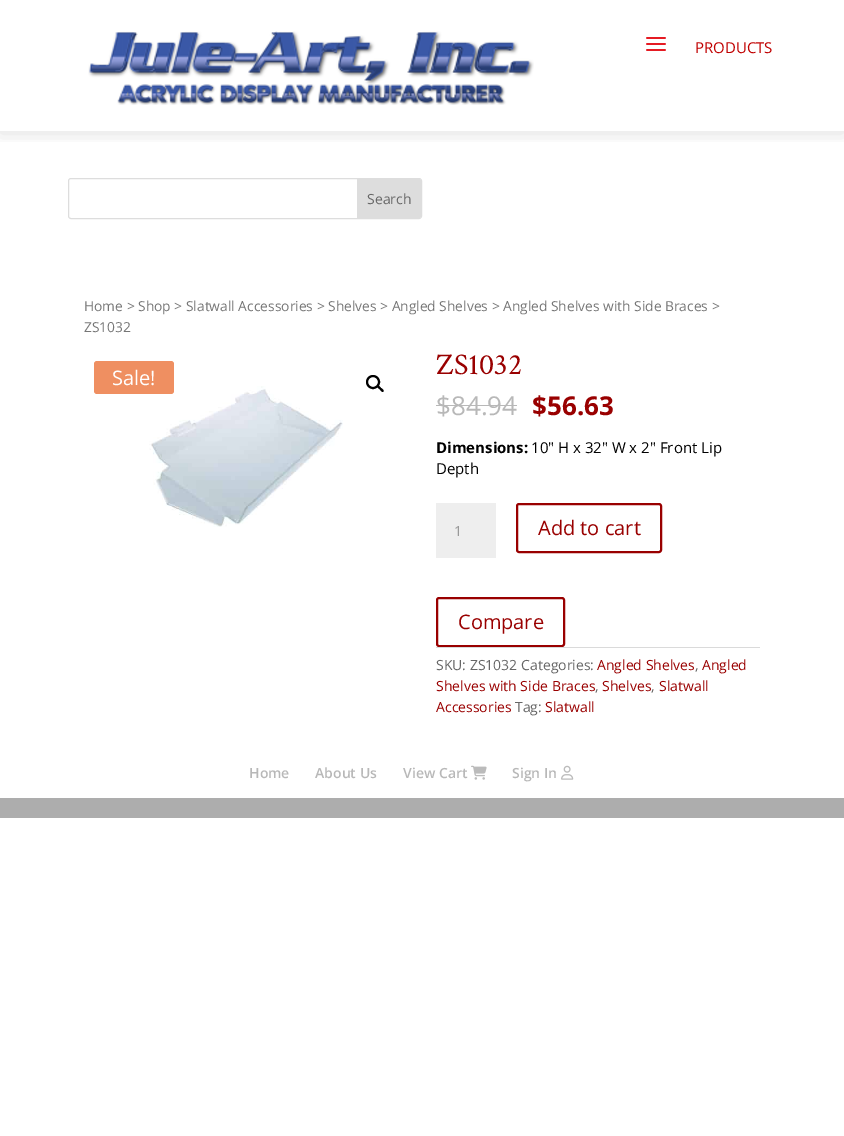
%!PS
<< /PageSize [844 1136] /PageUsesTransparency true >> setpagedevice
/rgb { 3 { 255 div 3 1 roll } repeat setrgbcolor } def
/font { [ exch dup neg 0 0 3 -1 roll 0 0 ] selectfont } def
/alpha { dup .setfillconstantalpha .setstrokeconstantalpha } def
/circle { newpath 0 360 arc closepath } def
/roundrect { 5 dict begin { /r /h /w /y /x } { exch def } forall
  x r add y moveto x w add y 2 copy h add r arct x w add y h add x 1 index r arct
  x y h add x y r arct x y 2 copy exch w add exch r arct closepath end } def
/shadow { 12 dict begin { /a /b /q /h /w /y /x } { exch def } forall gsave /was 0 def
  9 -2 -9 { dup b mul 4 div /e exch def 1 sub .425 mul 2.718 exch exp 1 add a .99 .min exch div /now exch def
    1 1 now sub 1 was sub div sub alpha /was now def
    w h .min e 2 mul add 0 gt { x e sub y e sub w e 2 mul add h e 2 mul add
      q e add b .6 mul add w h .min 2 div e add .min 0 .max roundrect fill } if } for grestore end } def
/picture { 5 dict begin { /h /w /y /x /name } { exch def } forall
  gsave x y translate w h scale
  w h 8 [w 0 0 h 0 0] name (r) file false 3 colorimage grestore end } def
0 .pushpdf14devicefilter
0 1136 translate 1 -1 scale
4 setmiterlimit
255 255 255 rgb
0 0 844 1136 rectfill
gsave
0 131 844 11 rectclip
0 0 0 rgb
0 2 844 131 0 9 0.12 shadow
grestore
(img/1.rgb) 88 31 446 74 picture
(img/2.rgb) 646 37 20 14 picture
221 221 221 rgb
68.5 178.5 353 40 2.5 roundrect stroke
357 179 moveto 419 179 lineto 420 179 421 180 421 181 curveto 421 216 lineto 421 217 420 218 419 218 curveto 357 218 lineto closepath fill
(img/3.rgb) 149 386 194 141 picture
239 143 97 rgb
94 361 80 33 3 roundrect fill
0 0 0 rgb
2 setlinewidth
373 382 6 circle stroke
377.5 386 moveto 379 385 380.5 387.5 381 388 curveto 382 388.5 384.5 390.5 383.5 391.5 curveto 382 393 380.5 390 380 389.5 curveto 379 389 376.5 387 377.5 386 curveto closepath fill
184 184 184 rgb
436 405 81 1 rectfill
238 238 238 rgb
436 503 60 55 rectfill
153 0 0 rgb
517 504 144 48 2 roundrect stroke
437 598 127 48 2 roundrect stroke
218 218 218 rgb
436 647 324 1 rectfill
(img/4.rgb) 471 765 16 15 picture
(img/5.rgb) 561 765 13 15 picture
173 173 173 rgb
0 798 844 20 rectfill
/OpenSans-Regular 15 font
192 0 0 rgb
695 53 moveto (PRODUCTS) show
/OpenSans-Regular 14 font
102 102 102 rgb
367 204 moveto (Search) show
/OpenSans-Regular 13.8 font
118 118 118 rgb
84 311 moveto (Home > Shop > Slatwall Accessories > Shelves > Angled Shelves > Angled Shelves with Side Braces >) show
84 332 moveto (ZS1032) show
/OpenSans-Regular 20 font
255 255 255 rgb
112 385 moveto (Sale!) show
/CrimsonText-Regular 30 font
153 0 0 rgb
436 374 moveto (ZS1032) show
/OpenSans-Regular 26 font
184 184 184 rgb
436 415 moveto ($84.94) show
/OpenSans-Bold 26 font
153 0 0 rgb
532 415 moveto ($56.63) show
/OpenSans-Bold 15 font
0 0 0 rgb
436 453 moveto (Dimensions:) show
/OpenSans-Regular 15 font
531 453 moveto (10" H x 32" W x 2" Front Lip) show
436 474 moveto (Depth) show
/OpenSans-Regular 14 font
153 153 153 rgb
454 536 moveto (1) show
/OpenSans-Regular 20 font
153 0 0 rgb
538 535 moveto (Add to cart) show
458 629 moveto (Compare) show
/OpenSans-Regular 14 font
102 102 102 rgb
436 670 moveto (SKU: ZS1032 Categories:) show
153 0 0 rgb
597 670 moveto (Angled Shelves) show
102 102 102 rgb
695 670 moveto (,) show
153 0 0 rgb
702 670 moveto (Angled) show
436 691 moveto (Shelves with Side Braces) show
102 102 102 rgb
595 691 moveto (,) show
153 0 0 rgb
602 691 moveto (Shelves) show
102 102 102 rgb
651 691 moveto (,) show
153 0 0 rgb
659 691 moveto (Slatwall) show
436 712 moveto (Accessories) show
102 102 102 rgb
515 712 moveto (Tag:) show
153 0 0 rgb
545 712 moveto (Slatwall) show
/OpenSans-SemiBold 14 font
184 184 184 rgb
[
  [(Home) 249 778]
  [(About Us) 315 778]
  [(View Cart) 403 778]
  [(Sign In) 512 778]
] { aload pop moveto show } forall
.poppdf14devicefilter showpage
